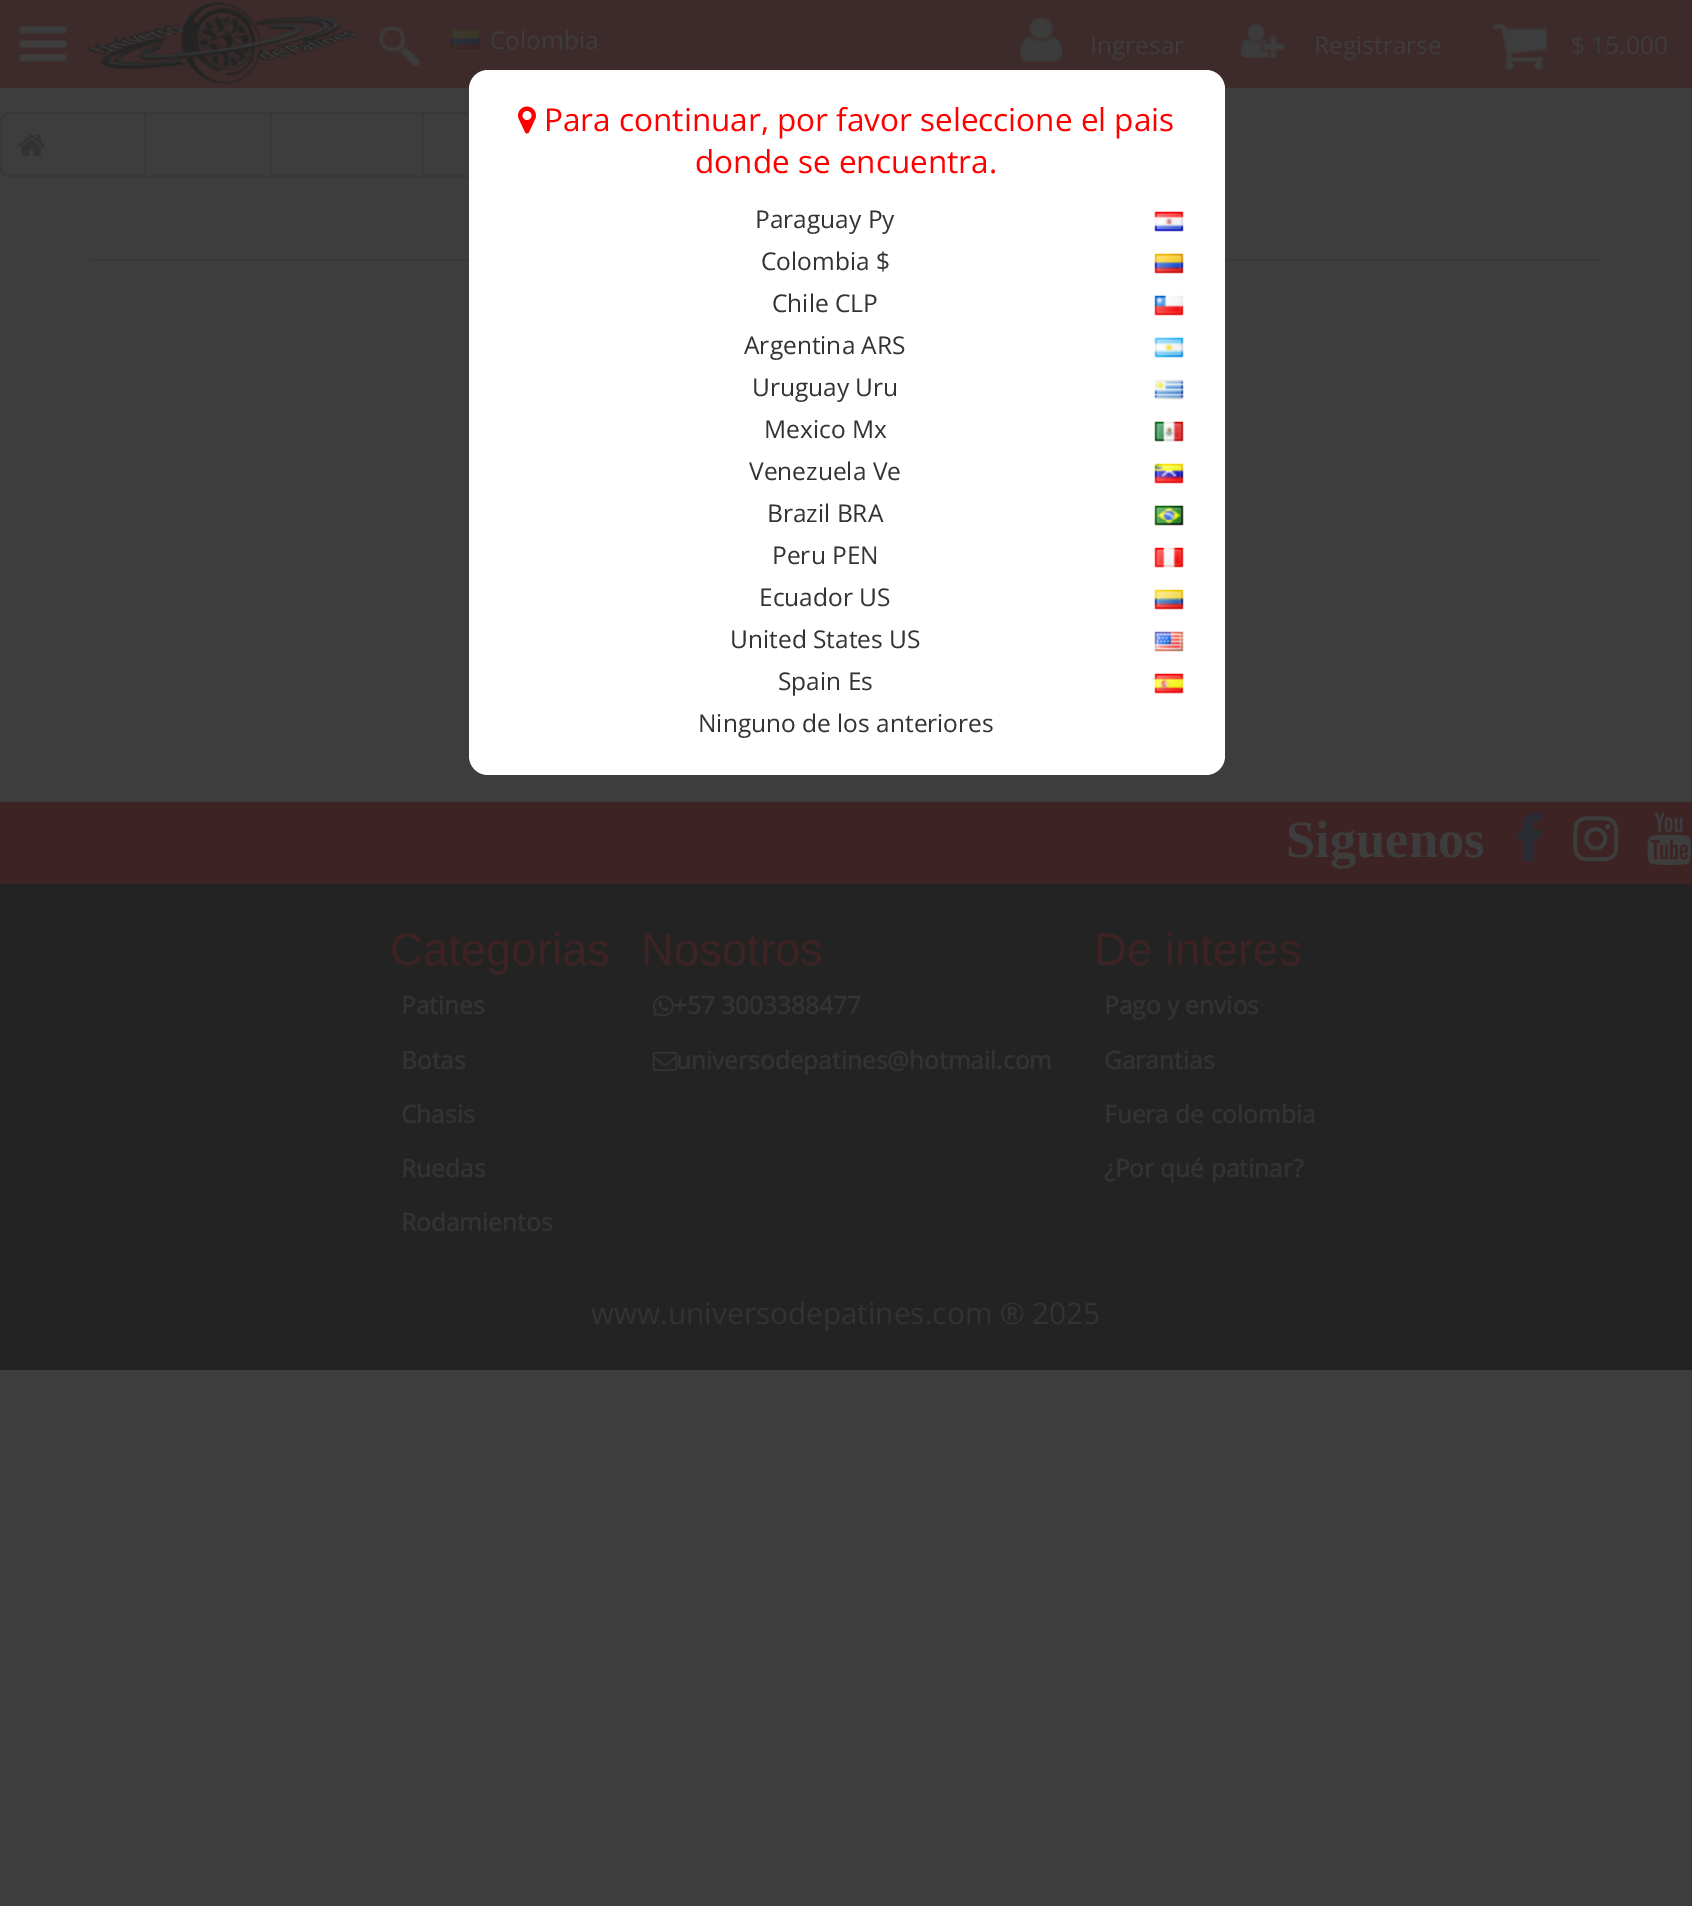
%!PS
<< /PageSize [1692 1906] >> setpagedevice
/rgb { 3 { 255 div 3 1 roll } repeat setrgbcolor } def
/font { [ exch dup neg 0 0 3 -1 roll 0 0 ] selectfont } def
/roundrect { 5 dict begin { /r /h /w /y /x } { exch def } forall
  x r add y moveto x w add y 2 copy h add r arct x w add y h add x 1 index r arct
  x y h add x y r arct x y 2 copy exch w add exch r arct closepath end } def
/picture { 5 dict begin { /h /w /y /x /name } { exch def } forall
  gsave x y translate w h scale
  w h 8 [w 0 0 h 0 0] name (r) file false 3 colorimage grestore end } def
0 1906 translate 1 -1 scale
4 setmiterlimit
61 61 61 rgb
0 0 1692 1906 rectfill
61 42 42 rgb
0 0 1692 88 rectfill
(img/1.rgb) 18 25 50 37 picture
(img/2.rgb) 85 2 272 82 picture
(img/3.rgb) 379 25 43 42 picture
(img/4.rgb) 451 29 30 20 picture
(img/5.rgb) 1019 16 45 47 picture
(img/6.rgb) 1240 23 46 36 picture
(img/7.rgb) 1492 23 57 49 picture
56 56 56 rgb
2 setlinewidth
1 113 973 63 8 roundrect stroke
57 57 57 rgb
91 259 1510 2 rectfill
255 255 255 rgb
469 70 756 705 19 roundrect fill
(img/8.rgb) 518 106 18 28 picture
(img/9.rgb) 1154 211 30 21 picture
(img/10.rgb) 1154 253 30 21 picture
(img/11.rgb) 1154 295 30 21 picture
(img/12.rgb) 1154 337 30 21 picture
(img/13.rgb) 1154 379 30 21 picture
(img/14.rgb) 1154 421 30 21 picture
(img/15.rgb) 1154 463 30 21 picture
(img/16.rgb) 1154 505 30 21 picture
(img/17.rgb) 1154 547 30 21 picture
(img/18.rgb) 1154 589 30 21 picture
(img/19.rgb) 1154 631 30 21 picture
(img/20.rgb) 1154 673 30 21 picture
56 56 56 rgb
144 114 2 61 rectfill
(img/21.rgb) 18 134 27 22 picture
[
  [270 114 2 61 56 56 56]
  [422 114 2 61 56 56 56]
  [0 884 1692 486 35 35 35]
  [0 802 1692 82 61 35 35]
] { aload pop rgb rectfill } forall
41 44 50 rgb
1542 813 moveto 1542 821 lineto 1532 821 1533 821 1533 830 curveto 1542 830 lineto 1540 839 lineto 1533 839 lineto 1533 861 lineto 1524 861 lineto 1524 839 lineto 1517 839 lineto 1517 830 lineto 1524 830 lineto 1524 821 lineto 1526 813 1535 812 1542 813 curveto closepath fill
(img/22.rgb) 1573 816 46 46 picture
(img/23.rgb) 1647 812 44 53 picture
(img/24.rgb) 652 995 22 22 picture
(img/25.rgb) 652 1051 26 20 picture
/OpenSans-Regular 24.5 font
61 61 61 rgb
[
  [(Colombia) 490 49]
  [(Ingresar) 1090 54]
  [(Registrarse) 1314 54]
  [($ 15.000) 1571 54]
] { aload pop moveto show } forall
/OpenSans-Regular 31.5 font
255 0 0 rgb
544 131 moveto (Para continuar, por favor seleccione el pais) show
695 173 moveto (donde se encuentra.) show
/OpenSans-Regular 24.5 font
51 51 51 rgb
[
  [(Paraguay Py) 755 228]
  [(Colombia $) 761 270]
  [(Chile CLP) 772 312]
  [(Argentina ARS) 744 354]
  [(Uruguay Uru) 752 396]
  [(Mexico Mx) 764 438]
  [(Venezuela Ve) 749 480]
  [(Brazil BRA) 767 522]
  [(Peru PEN) 772 564]
  [(Ecuador US) 759 606]
  [(United States US) 730 648]
  [(Spain Es) 778 690]
  [(Ninguno de los anteriores) 698 732]
] { aload pop moveto show } forall
/LiberationSerif-Bold 52.5 font
61 61 61 rgb
1286 857 moveto (Siguenos) show
/LiberationSans-Regular 45.5 font
61 35 35 rgb
390 965 moveto (Categorias) show
/OpenSans-Bold 24.5 font
51 51 51 rgb
[
  [(Patines) 401 1014]
  [(Botas) 401 1069]
  [(Chasis) 401 1123]
  [(Ruedas) 401 1177]
  [(Rodamientos) 401 1231]
] { aload pop moveto show } forall
/LiberationSans-Regular 45.5 font
61 35 35 rgb
641 965 moveto (Nosotros) show
/OpenSans-Bold 24.5 font
51 51 51 rgb
673 1014 moveto (+57 3003388477) show
676 1069 moveto (universodepatines@hotmail.com) show
/LiberationSans-Regular 45.5 font
61 35 35 rgb
1094 965 moveto (De interes) show
/OpenSans-Bold 24.5 font
51 51 51 rgb
[
  [(Pago y envios) 1104 1014]
  [(Garantias) 1104 1069]
  [(Fuera de colombia) 1104 1123]
  [(¿Por qué patinar?) 1104 1177]
] { aload pop moveto show } forall
/OpenSans-Regular 29.75 font
591 1324 moveto (www.universodepatines.com ® 2025) show
showpage
